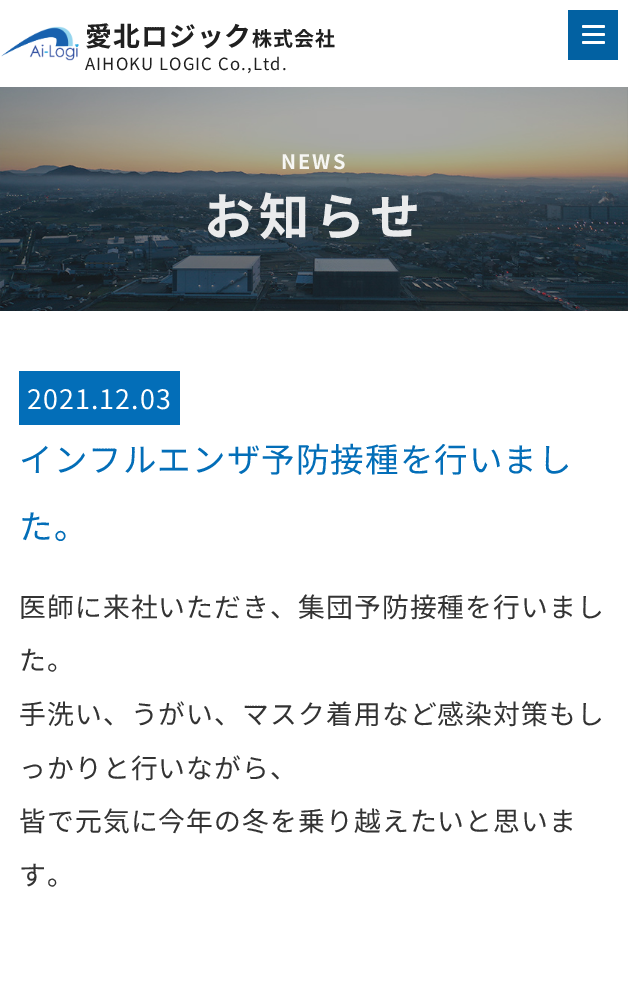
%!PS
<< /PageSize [628 993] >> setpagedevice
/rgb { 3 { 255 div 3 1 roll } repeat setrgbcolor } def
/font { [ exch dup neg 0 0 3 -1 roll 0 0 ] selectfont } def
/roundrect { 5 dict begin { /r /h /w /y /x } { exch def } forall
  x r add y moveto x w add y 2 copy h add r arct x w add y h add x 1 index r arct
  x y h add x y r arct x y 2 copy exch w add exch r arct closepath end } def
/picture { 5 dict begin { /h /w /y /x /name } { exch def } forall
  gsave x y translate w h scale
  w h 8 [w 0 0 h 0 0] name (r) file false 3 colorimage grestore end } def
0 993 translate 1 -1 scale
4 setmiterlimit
255 255 255 rgb
0 0 628 993 rectfill
(img/1.rgb) 1 26 78 35 picture
2 97 162 rgb
568 10 50 50 rectfill
255 255 255 rgb
582 25 23 3 1.5 roundrect fill
582 33 23 3 1.5 roundrect fill
582 41 23 3 1.5 roundrect fill
(img/2.rgb) 0 87 628 224 picture
3 110 184 rgb
19 371 161 54 rectfill
/NotoSansJP-Bold 26.8 font
32 32 32 rgb
85 46 moveto 1.1 0 (愛北ロジック) ashow
/NotoSansJP-Bold 20 font
252 46 moveto 1.1 0 (株式会社) ashow
/NotoSansJP-Regular 16.75 font
85 70 moveto 1.1 0 (AIHOKU LOGIC Co.,Ltd.) ashow
/NotoSansJP-Bold 20 font
246 246 243 rgb
281 169 moveto 2 0 (NEWS) ashow
/NotoSansJP-Bold 50.25 font
234 235 236 rgb
204 235 moveto 5 0 (お知らせ) ashow
/NotoSansJP-Regular 26.8 font
255 255 255 rgb
27 409 moveto 1.1 0 (2021.12.03) ashow
/NotoSansJP-Regular 33.5 font
3 110 184 rgb
19 472 moveto 1.1 0 (インフルエンザ予防接種を行いまし) ashow
19 539 moveto 1.1 0 (た。) ashow
/NotoSansJP-Regular 26.8 font
51 51 51 rgb
19 617 moveto 1.1 0 (医師に来社いただき、集団予防接種を行いまし) ashow
19 670 moveto 1.1 0 (た。) ashow
19 724 moveto 1.1 0 (手洗い、うがい、マスク着用など感染対策もし) ashow
19 778 moveto 1.1 0 (っかりと行いながら、) ashow
19 831 moveto 1.1 0 (皆で元気に今年の冬を乗り越えたいと思いま) ashow
19 885 moveto 1.1 0 (す。) ashow
showpage
